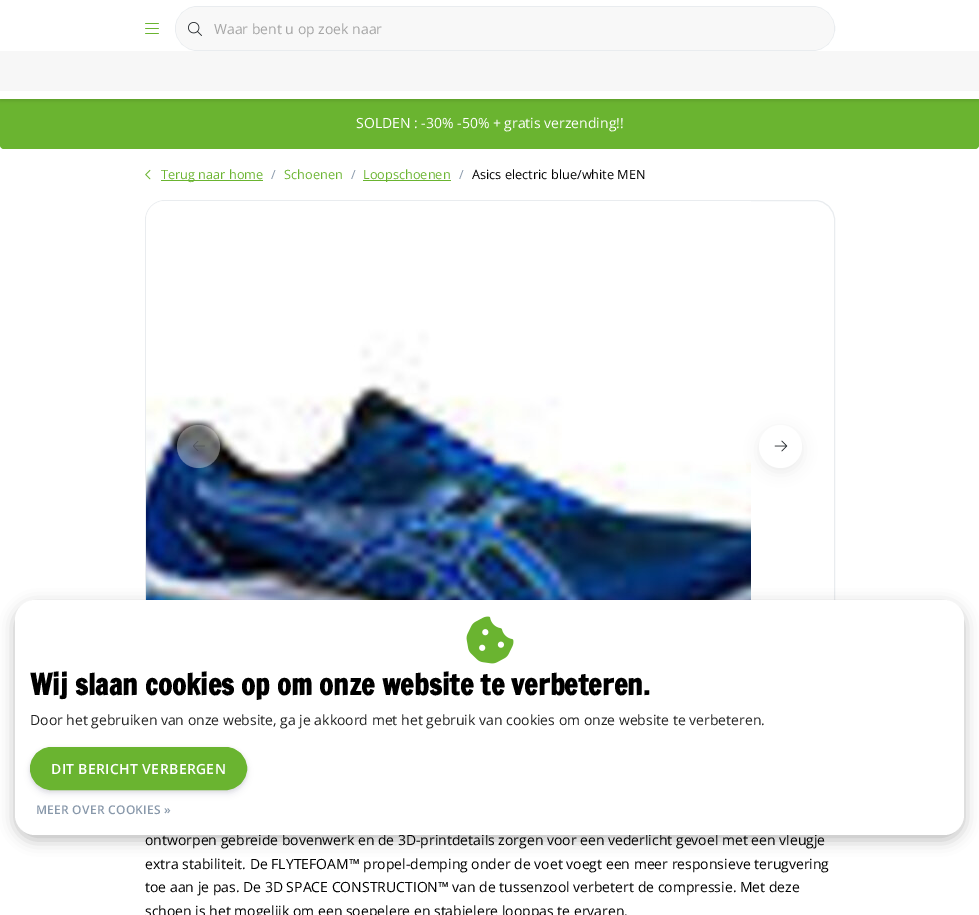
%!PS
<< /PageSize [979 915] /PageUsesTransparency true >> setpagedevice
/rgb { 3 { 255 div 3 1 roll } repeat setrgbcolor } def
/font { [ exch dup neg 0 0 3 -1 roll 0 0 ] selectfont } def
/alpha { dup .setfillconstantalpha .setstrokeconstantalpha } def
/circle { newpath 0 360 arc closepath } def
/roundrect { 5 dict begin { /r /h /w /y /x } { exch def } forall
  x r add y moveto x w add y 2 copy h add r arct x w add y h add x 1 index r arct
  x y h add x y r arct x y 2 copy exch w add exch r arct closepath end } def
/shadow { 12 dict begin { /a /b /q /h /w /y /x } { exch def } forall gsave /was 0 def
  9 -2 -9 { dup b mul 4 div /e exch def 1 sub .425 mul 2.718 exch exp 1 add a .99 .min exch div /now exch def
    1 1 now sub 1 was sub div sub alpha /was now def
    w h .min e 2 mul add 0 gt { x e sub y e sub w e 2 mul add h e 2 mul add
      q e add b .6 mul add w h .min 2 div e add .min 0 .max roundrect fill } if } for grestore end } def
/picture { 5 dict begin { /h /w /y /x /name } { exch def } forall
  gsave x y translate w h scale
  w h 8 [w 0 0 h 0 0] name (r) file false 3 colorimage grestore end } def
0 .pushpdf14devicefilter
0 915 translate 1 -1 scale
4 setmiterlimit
255 255 255 rgb
0 0 979 915 rectfill
106 180 48 rgb
0 96 979 53 4 roundrect fill
0 0 0 rgb
0 -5 979 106 0 1.5 0.1 shadow
255 255 255 rgb
0 0 979 99 rectfill
(img/1.rgb) 145 23 14 11 picture
233 236 239 rgb
175.5 6.5 659 44 22 roundrect stroke
248 248 248 rgb
197.5 7 moveto 214 7 lineto 214 50 lineto 197.5 50 lineto 185.5 50 176 40.5 176 28.5 curveto 176 16.5 185.5 7 197.5 7 curveto closepath fill
(img/2.rgb) 188 22 14 14 picture
214 7 moveto 812.5 7 lineto 824.5 7 834 16.5 834 28.5 curveto 834 40.5 824.5 50 812.5 50 curveto 214 50 lineto closepath fill
247 247 247 rgb
0 51 979 40 rectfill
(img/3.rgb) 145 169 6 11 picture
106 180 48 rgb
161 180 102 1 rectfill
363 180 88 1 rectfill
233 236 239 rgb
145.5 200.5 689 487 19.5 roundrect stroke
247 247 247 rgb
165 201 moveto 751 201 lineto 751 687 lineto 165 687 lineto 154.5 687 146 678.5 146 668 curveto 146 220 lineto 146 209.5 154.5 201 165 201 curveto closepath fill
(img/4.rgb) 146 201 605 399 picture
0.35 alpha
255 255 255 rgb
198.5 446.5 21.5 circle fill
1 alpha
(img/5.rgb) 193 441 12 10 picture
0 0 0 rgb
759 429 43 43 21.5 7 0.07 shadow
255 255 255 rgb
780.5 446.5 21.5 circle fill
(img/6.rgb) 774 440 14 12 picture
0 0 0 rgb
15 605 949 235 20 7.5 0.25 shadow
/OpenSans-Regular 14 font
165 165 165 rgb
214 34 moveto (Waar bent u op zoek naar) show
255 255 255 rgb
356 128 moveto (SOLDEN : -30% -50% + gratis verzending!!) show
/OpenSans-Regular 12.75 font
106 180 48 rgb
161 179 moveto (Terug naar home) show
136 152 170 rgb
271 179 moveto (/) show
106 180 48 rgb
284 179 moveto (Schoenen) show
136 152 170 rgb
351 179 moveto (/) show
106 180 48 rgb
363 179 moveto (Loopschoenen) show
136 152 170 rgb
459 179 moveto (/) show
0 0 0 rgb
472 179 moveto (Asics electric blue/white MEN) show
/OpenSans-Regular 14 font
[
  [(ontworpen gebreide bovenwerk en de 3D-printdetails zorgen voor een vederlicht gevoel met een vleugje) 145 845]
  [(extra stabiliteit. De FLYTEFOAM™ propel-demping onder de voet voegt een meer responsieve terugvering) 145 869]
  [(toe aan je pas. De 3D SPACE CONSTRUCTION™ van de tussenzool verbetert de compressie. Met deze) 145 892]
  [(schoen is het mogelijk om een soepelere en stabielere looppas te ervaren.) 145 916]
] { aload pop moveto show } forall
255 255 255 rgb
15 600 949 235 20 roundrect fill
(img/7.rgb) 466 616 48 48 picture
/FrancoisOne-Bold 28.8 font
0 0 0 rgb
30 695 moveto (Wij slaan cookies op om onze website te verbeteren.) show
/OpenSans-Regular 14 font
34 34 34 rgb
30 725 moveto (Door het gebruiken van onze website, ga je akkoord met het gebruik van cookies om onze website te verbeteren.) show
0 0 0 rgb
30 748 217 43 21.5 1.5 0.08 shadow
50 50 93 rgb
30 751 217 43 21.5 3 0.11 shadow
106 180 48 rgb
30.5 747.5 216 42 21 roundrect gsave fill grestore
stroke
/OpenSans-SemiBold 14 font
255 255 255 rgb
51 774 moveto 0.35 0 (DIT BERICHT VERBERGEN) ashow
/OpenSans-SemiBold 12 font
136 152 170 rgb
36 814 moveto 0.25 0 (MEER OVER COOKIES ») ashow
.poppdf14devicefilter showpage
